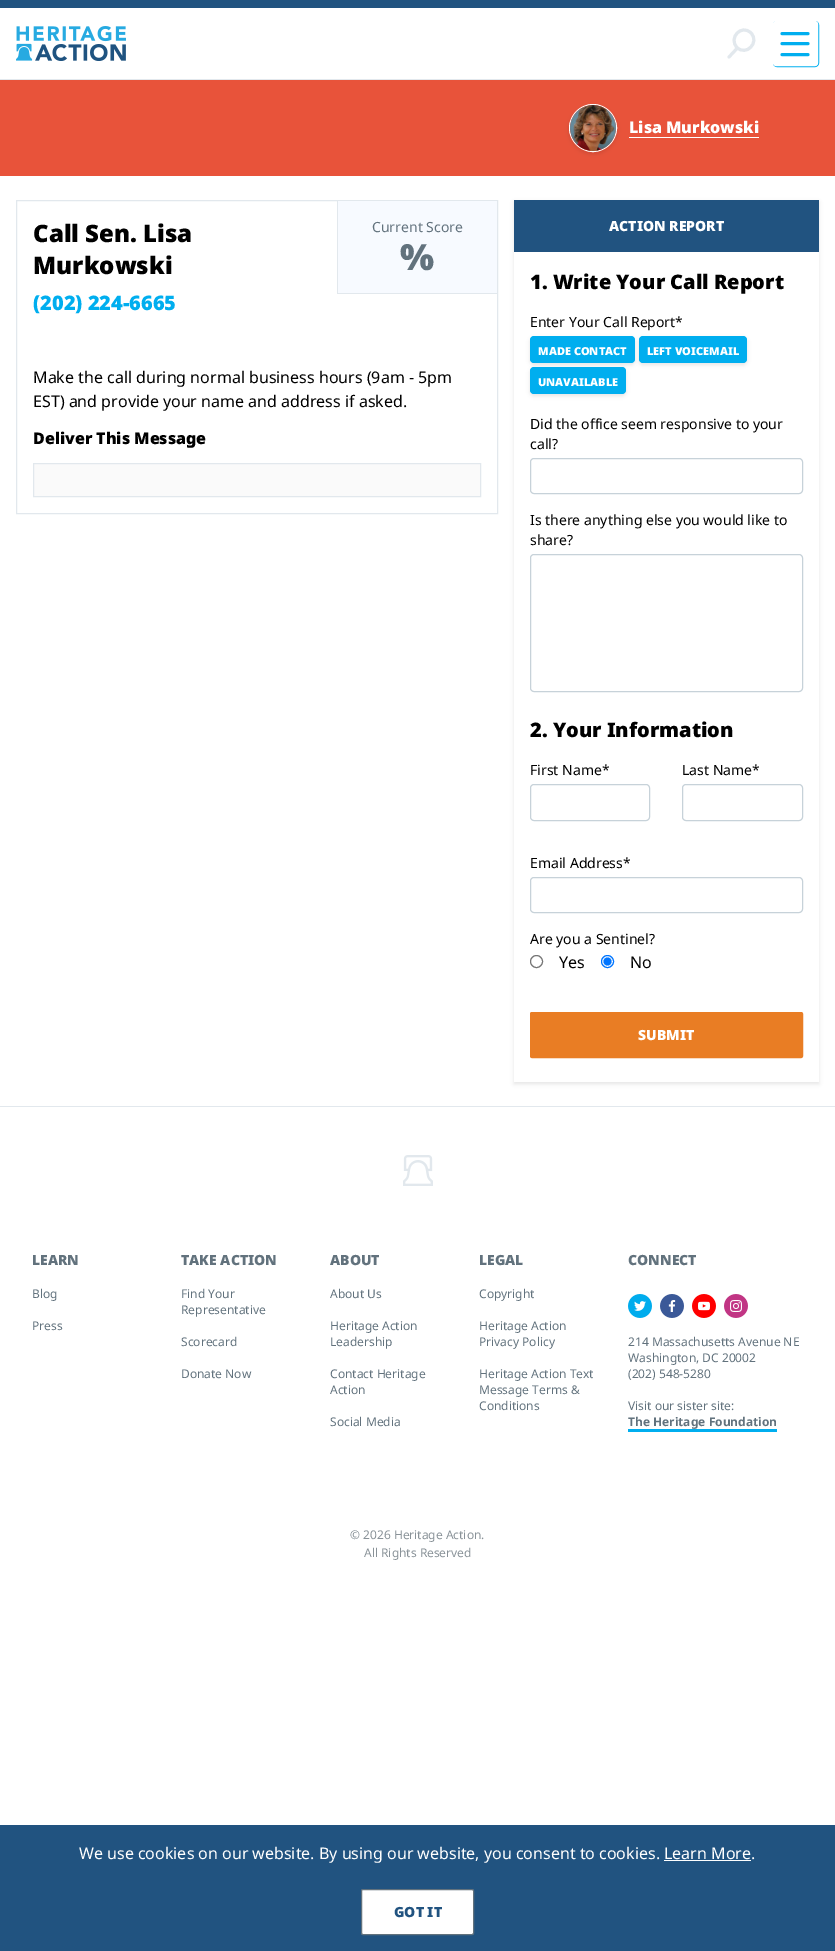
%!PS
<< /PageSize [835 1951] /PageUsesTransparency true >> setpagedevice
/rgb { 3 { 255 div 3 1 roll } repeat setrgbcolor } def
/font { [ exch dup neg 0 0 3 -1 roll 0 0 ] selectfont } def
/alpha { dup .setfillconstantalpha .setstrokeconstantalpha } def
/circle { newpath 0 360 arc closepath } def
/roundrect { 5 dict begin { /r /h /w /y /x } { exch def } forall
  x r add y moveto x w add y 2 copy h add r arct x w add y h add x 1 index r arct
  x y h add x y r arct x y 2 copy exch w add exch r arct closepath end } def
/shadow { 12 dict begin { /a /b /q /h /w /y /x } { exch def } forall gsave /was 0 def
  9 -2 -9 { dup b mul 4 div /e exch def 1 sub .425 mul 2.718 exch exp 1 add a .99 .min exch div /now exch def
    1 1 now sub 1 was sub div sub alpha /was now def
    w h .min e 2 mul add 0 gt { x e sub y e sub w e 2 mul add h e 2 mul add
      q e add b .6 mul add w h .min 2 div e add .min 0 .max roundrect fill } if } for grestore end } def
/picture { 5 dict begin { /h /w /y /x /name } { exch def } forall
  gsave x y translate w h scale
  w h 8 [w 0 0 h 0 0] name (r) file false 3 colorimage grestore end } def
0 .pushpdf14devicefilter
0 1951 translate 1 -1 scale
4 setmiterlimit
255 255 255 rgb
0 0 835 1951 rectfill
33 83 128 rgb
0 0 835 8 rectfill
226 232 237 rgb
0 79 835 1 rectfill
(img/1.rgb) 16 26 110 35 picture
3 setlinewidth
1 setlinecap
737 47.5 moveto 746 56.5 760 42.5 751 33 curveto 741.5 23.5 728 38 737 47.5 curveto closepath 736.5 49 moveto 729 57 lineto stroke
0 174 239 rgb
1 setlinewidth
0 setlinecap
773.5 21.5 45 45 3.5 roundrect stroke
255 255 255 rgb
3 setlinewidth
774.5 22.5 42 42 1.5 roundrect stroke
0 174 239 rgb
1 setlinecap
808 33.5 moveto 782 33.5 lineto 808 54.5 moveto 782 54.5 lineto 808 43.5 moveto 782 43.5 lineto stroke
232 83 58 rgb
0 80 835 96 rectfill
0 0 0 rgb
569 106 48 48 24 2 0.1 shadow
255 255 255 rgb
1 setlinewidth
0 setlinecap
593 128 23.5 circle stroke
(img/2.rgb) 570 105 46 46 picture
629 137 130 1 rectfill
226 232 237 rgb
16.5 200.5 481 313 rectstroke
[
  [338 201 159 92 247 250 255]
  [337 293 160 1 226 232 237]
  [337 201 1 93 226 232 237]
] { aload pop rgb rectfill } forall
250 250 250 rgb
33.5 463.5 moveto 480.5 463.5 lineto 480.5 496.5 lineto 33.5 496.5 lineto closepath gsave fill grestore
226 232 237 rgb
stroke
gsave
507 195 moveto 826 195 lineto 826 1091 lineto 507 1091 lineto closepath 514 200 moveto 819 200 lineto 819 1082 lineto 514 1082 lineto closepath eoclip newpath
0 0 0 rgb
514 202 305 882 0 2 0.1 shadow
grestore
33 83 128 rgb
514 200 305 52 rectfill
0 0 0 rgb
530 338 105 27 4 2 0.1 shadow
0 174 239 rgb
530 336 105 27 4 roundrect fill
0 0 0 rgb
639 338 108 27 4 2 0.1 shadow
0 174 239 rgb
639 336 108 27 4 roundrect fill
0 0 0 rgb
530 369 96 27 4 2 0.1 shadow
0 174 239 rgb
530 367 96 27 4 roundrect fill
199 210 217 rgb
530.5 458.5 272 35 3.5 roundrect stroke
530.5 554.5 272 137 3.5 roundrect stroke
530.5 784.5 119 36 3.5 roundrect stroke
682.5 784.5 120 36 3.5 roundrect stroke
530.5 877.5 272 35 3.5 roundrect stroke
118 118 118 rgb
536.5 961.5 6 circle stroke
0 117 255 rgb
607.5 961.5 6 circle stroke
607.5 961.5 4 circle fill
233 125 36 rgb
530.5 1012.5 272 45 1.5 roundrect gsave fill grestore
stroke
226 232 237 rgb
0 1106 835 1 rectfill
(img/3.rgb) 403 1155 30 31 picture
(img/4.rgb) 628 1294 24 24 picture
(img/5.rgb) 660 1294 24 24 picture
(img/6.rgb) 692 1294 24 24 picture
(img/7.rgb) 724 1294 24 24 picture
[
  [628 1429 149 3 0 174 239]
  [0 1825 835 126 33 83 128]
  [664 1860 87 1 255 255 255]
] { aload pop rgb rectfill } forall
361.5 1889.5 112 45 1.5 roundrect gsave fill grestore
98 114 125 rgb
stroke
/NotoSans-Black 16 font
255 255 255 rgb
629 133 moveto (Lisa Murkowski) show
/NotoSans-Black 24 font
0 0 0 rgb
33 242 moveto (Call Sen. Lisa) show
33 274 moveto (Murkowski) show
/NotoSans-Black 20 font
0 174 239 rgb
33 310 moveto (\(202\) 224-6665) show
/NotoSans-Regular 14 font
98 114 125 rgb
372 232 moveto (Current Score) show
/NotoSans-Black 36 font
400 270 moveto (%) show
/NotoSans-Regular 16 font
0 0 0 rgb
33 383 moveto (Make the call during normal business hours \(9am - 5pm) show
33 407 moveto (EST\) and provide your name and address if asked.) show
/NotoSans-Black 16 font
33 444 moveto (Deliver This Message) show
/NotoSans-Black 14 font
255 255 255 rgb
609 231 moveto (ACTION REPORT) show
/NotoSans-Black 20 font
0 0 0 rgb
530 289 moveto (1. Write Your Call Report) show
/NotoSans-Regular 14 font
530 327 moveto (Enter Your Call Report*) show
/NotoSans-Black 11 font
255 255 255 rgb
[
  [(MADE CONTACT) 538 355]
  [(LEFT VOICEMAIL) 647 355]
  [(UNAVAILABLE) 538 386]
] { aload pop moveto show } forall
/NotoSans-Regular 14 font
0 0 0 rgb
[
  [(Did the office seem responsive to your) 530 429]
  [(call?) 530 449]
  [(Is there anything else you would like to) 530 525]
  [(share?) 530 545]
] { aload pop moveto show } forall
/NotoSans-Black 20 font
530 737 moveto (2. Your Information) show
/NotoSans-Regular 14 font
[
  [(First Name*) 530 775]
  [(Last Name*) 682 775]
  [(Email Address*) 530 868]
  [(Are you a Sentinel?) 530 944]
] { aload pop moveto show } forall
/NotoSans-Regular 16 font
559 968 moveto (Yes) show
630 968 moveto (No) show
/NotoSans-Black 14 font
255 255 255 rgb
638 1040 moveto (SUBMIT) show
98 114 125 rgb
32 1265 moveto (LEARN) show
/NotoSans-Regular 12 font
32 1298 moveto (Blog) show
32 1330 moveto (Press) show
/NotoSans-Black 14 font
181 1265 moveto (TAKE ACTION) show
/NotoSans-Regular 12 font
[
  [(Find Your) 181 1298]
  [(Representative) 181 1314]
  [(Scorecard) 181 1346]
  [(Donate Now) 181 1378]
] { aload pop moveto show } forall
/NotoSans-Black 14 font
330 1265 moveto (ABOUT) show
/NotoSans-Regular 12 font
[
  [(About Us) 330 1298]
  [(Heritage Action) 330 1330]
  [(Leadership) 330 1346]
  [(Contact Heritage) 330 1378]
  [(Action) 330 1394]
  [(Social Media) 330 1426]
] { aload pop moveto show } forall
/NotoSans-Black 14 font
479 1265 moveto (LEGAL) show
/NotoSans-Regular 12 font
[
  [(Copyright) 479 1298]
  [(Heritage Action) 479 1330]
  [(Privacy Policy) 479 1346]
  [(Heritage Action Text) 479 1378]
  [(Message Terms &) 479 1394]
  [(Conditions) 479 1410]
] { aload pop moveto show } forall
/NotoSans-Black 14 font
628 1265 moveto (CONNECT) show
/NotoSans-Regular 12 font
[
  [(214 Massachusetts Avenue NE) 628 1346]
  [(Washington, DC 20002) 628 1362]
  [(\(202\) 548-5280) 628 1378]
  [(Visit our sister site:) 628 1410]
] { aload pop moveto show } forall
/NotoSans-Bold 12 font
628 1426 moveto (The Heritage Foundation) show
/NotoSans-Regular 12 font
137 146 152 rgb
350 1539 moveto (© 2026 Heritage Action.) show
364 1557 moveto (All Rights Reserved) show
/NotoSans-Regular 16 font
255 255 255 rgb
79 1859 moveto (We use cookies on our website. By using our website, you consent to cookies. Learn More.) show
/NotoSans-Black 14 font
33 83 128 rgb
394 1917 moveto (GOT IT) show
.poppdf14devicefilter showpage
